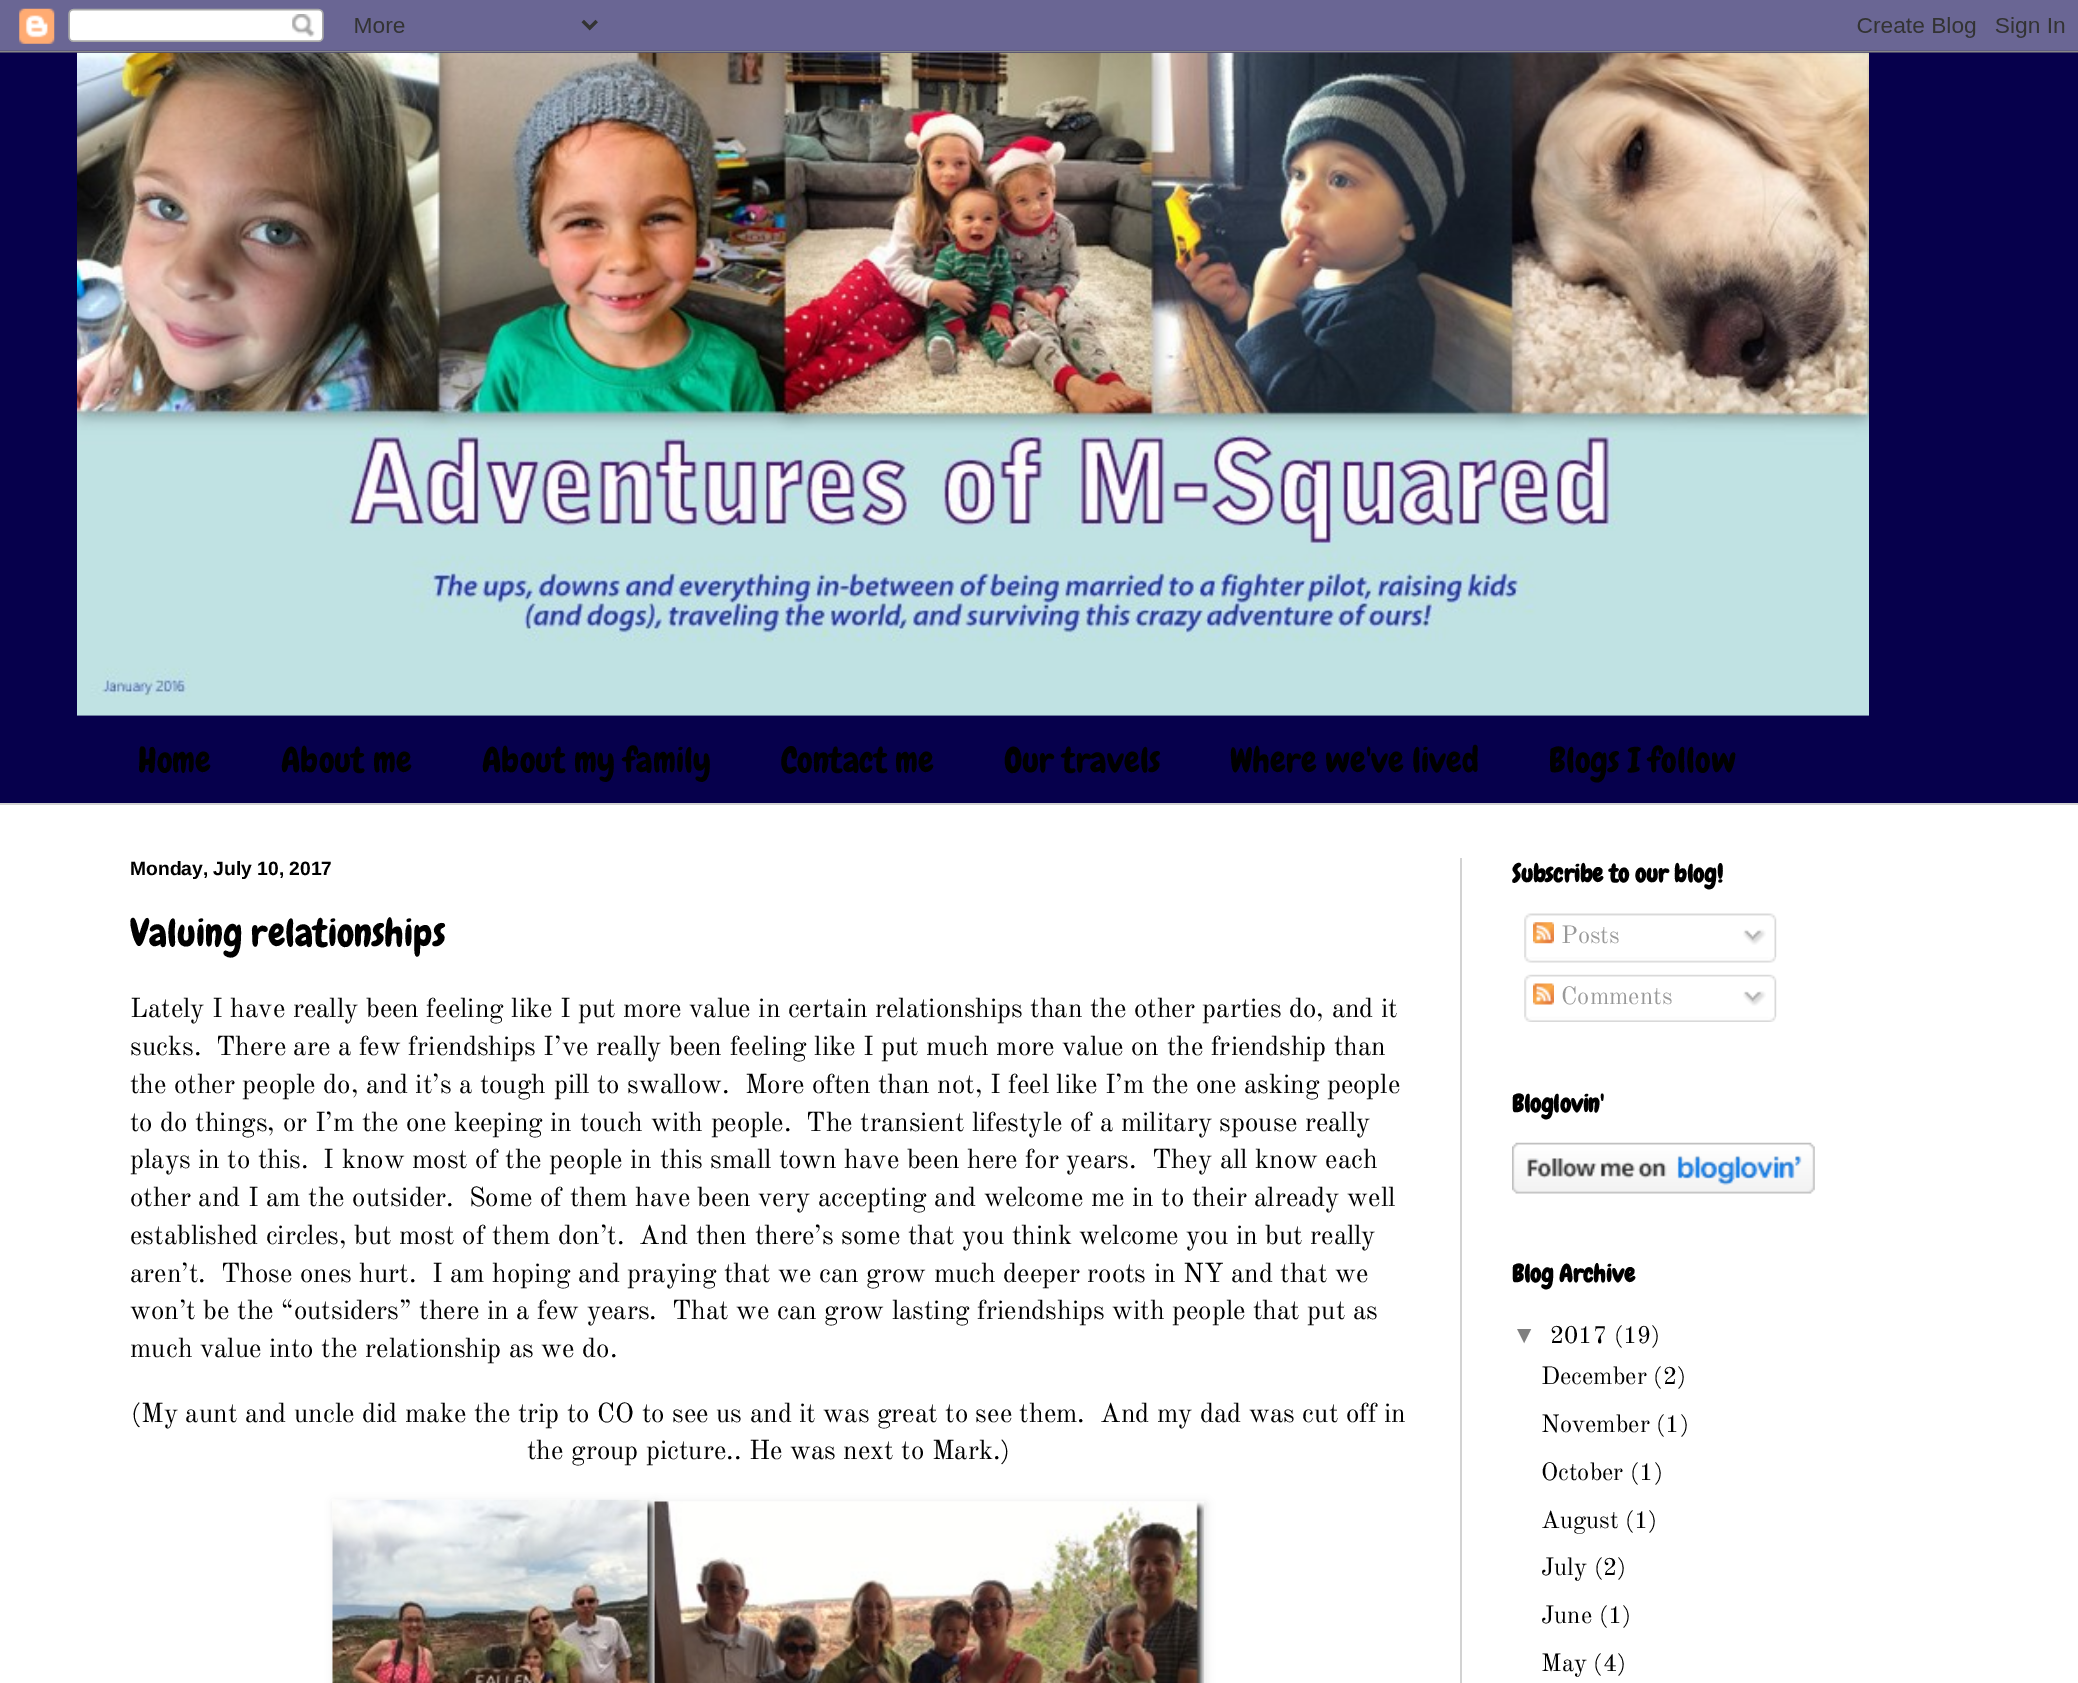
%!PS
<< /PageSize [2078 1683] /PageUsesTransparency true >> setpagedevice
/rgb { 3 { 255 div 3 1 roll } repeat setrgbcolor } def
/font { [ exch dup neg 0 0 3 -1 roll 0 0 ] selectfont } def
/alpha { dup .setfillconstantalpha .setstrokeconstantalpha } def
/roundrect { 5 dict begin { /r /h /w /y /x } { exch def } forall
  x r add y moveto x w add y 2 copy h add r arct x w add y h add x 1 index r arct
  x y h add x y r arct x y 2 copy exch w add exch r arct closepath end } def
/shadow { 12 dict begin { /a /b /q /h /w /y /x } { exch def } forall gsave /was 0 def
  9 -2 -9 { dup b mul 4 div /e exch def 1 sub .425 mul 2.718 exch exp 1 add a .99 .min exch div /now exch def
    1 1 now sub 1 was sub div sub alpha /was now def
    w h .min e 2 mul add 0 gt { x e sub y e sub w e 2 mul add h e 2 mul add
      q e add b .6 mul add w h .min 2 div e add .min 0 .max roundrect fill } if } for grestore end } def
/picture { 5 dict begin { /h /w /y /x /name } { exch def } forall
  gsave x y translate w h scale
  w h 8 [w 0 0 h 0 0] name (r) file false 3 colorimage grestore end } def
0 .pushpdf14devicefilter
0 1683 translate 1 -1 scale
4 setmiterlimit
6 0 76 rgb
0 0 2078 1683 rectfill
(img/2.rgb) 77 52 1792 664 picture
(img/1.rgb) 0 0 2078 53 picture
[
  [0 805 2078 878 255 255 255]
  [0 803 2078 2 210 210 210]
  [1460 858 2 825 210 210 210]
] { aload pop rgb rectfill } forall
0 0 0 rgb
334 1502 322 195 0 4.5 0.1 shadow
255 255 255 rgb
654 1500 1 183 rectfill
(img/3.rgb) 332 1499 323 184 picture
0 0 0 rgb
656 1503 550 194 0 4.5 0.1 shadow
(img/4.rgb) 654 1501 550 182 picture
(img/5.rgb) 1524 913 253 45 picture
(img/6.rgb) 1533 922 21 22 picture
(img/7.rgb) 1743 929 23 16 picture
(img/8.rgb) 1524 957 252 6 picture
(img/9.rgb) 1524 974 253 43 picture
(img/10.rgb) 1533 983 21 22 picture
(img/11.rgb) 1743 991 23 15 picture
(img/12.rgb) 1524 1016 252 6 picture
(img/13.rgb) 1512 1142 303 52 picture
/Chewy-Regular 35 font
[
  [(Home) 138 772]
  [(About me) 281 772]
  [(About my family) 482 772]
  [(Contact me) 781 772]
  [(Our travels) 1004 772]
  [(Where we've lived) 1230 772]
  [(Blogs I follow) 1549 772]
] { aload pop moveto show } forall
/LiberationSans-Bold 19.25 font
130 875 moveto (Monday, July 10, 2017) show
/Chewy-Regular 38.5 font
130 946 moveto (Valuing relationships) show
/OldStandardTT-Regular 26.95 font
[
  [(Lately I have really been feeling like I put more value in certain relationships than the other parties do, and it) 130 1017]
  [(sucks.  There are a few friendships I’ve really been feeling like I put much more value on the friendship than) 130 1055]
  [(the other people do, and it’s a tough pill to swallow.  More often than not, I feel like I’m the one asking people) 130 1093]
  [(to do things, or I’m the one keeping in touch with people.  The transient lifestyle of a military spouse really) 130 1131]
  [(plays in to this.  I know most of the people in this small town have been here for years.  They all know each) 130 1168]
  [(other and I am the outsider.  Some of them have been very accepting and welcome me in to their already well) 130 1206]
  [(established circles, but most of them don’t.  And then there’s some that you think welcome you in but really) 130 1244]
  [(aren’t.  Those ones hurt.  I am hoping and praying that we can grow much deeper roots in NY and that we) 130 1282]
  [(won’t be the “outsiders” there in a few years.  That we can grow lasting friendships with people that put as) 130 1319]
  [(much value into the relationship as we do.) 130 1357]
  [(\(My aunt and uncle did make the trip to CO to see us and it was great to see them.  And my dad was cut off in) 131 1422]
  [(the group picture.. He was next to Mark.\)) 527 1459]
] { aload pop moveto show } forall
/Chewy-Bold 24.5 font
1512 882 moveto (Subscribe to our blog!) show
/OldStandardTT-Regular 24.5 font
153 153 153 rgb
1561 943 moveto (Posts) show
1561 1004 moveto (Comments) show
/Chewy-Bold 24.5 font
0 0 0 rgb
1512 1112 moveto (Bloglovin') show
1512 1282 moveto (Blog Archive) show
/LiberationSans-Regular 24.5 font
127 127 127 rgb
1512 1343 moveto (▼) show
/OldStandardTT-Regular 24.5 font
0 0 0 rgb
[
  [(2017 \(19\)) 1550 1343]
  [(December \(2\)) 1541 1384]
  [(November \(1\)) 1541 1432]
  [(October \(1\)) 1541 1480]
  [(August \(1\)) 1541 1528]
  [(July \(2\)) 1541 1575]
  [(June \(1\)) 1541 1623]
  [(May \(4\)) 1541 1671]
] { aload pop moveto show } forall
.poppdf14devicefilter showpage
